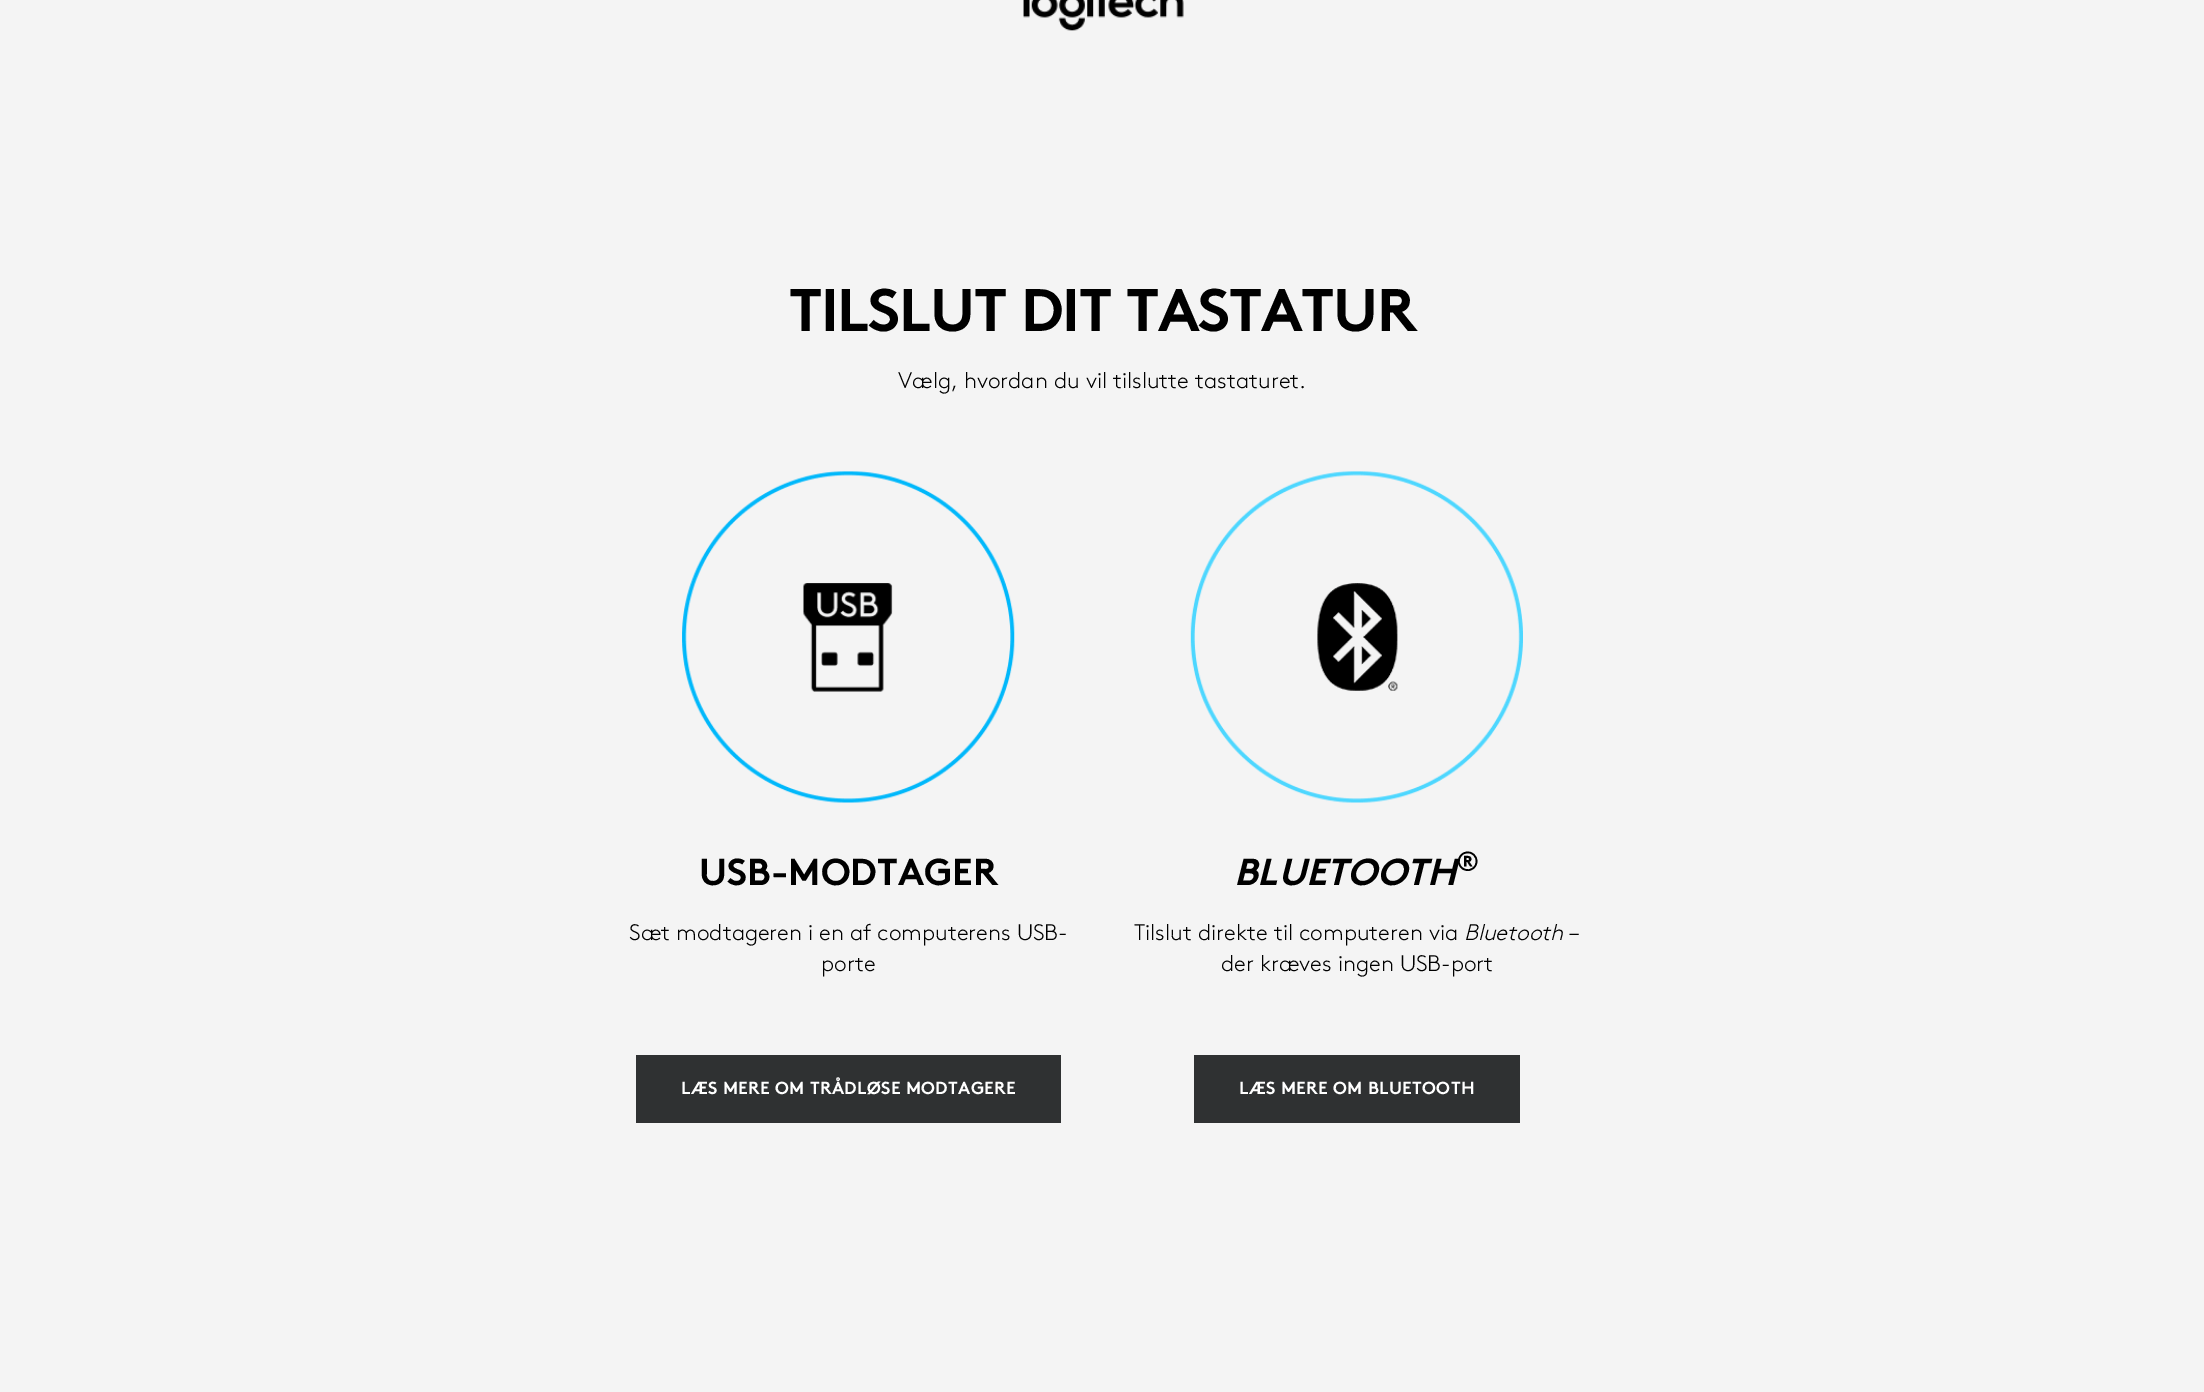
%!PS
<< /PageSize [2204 1392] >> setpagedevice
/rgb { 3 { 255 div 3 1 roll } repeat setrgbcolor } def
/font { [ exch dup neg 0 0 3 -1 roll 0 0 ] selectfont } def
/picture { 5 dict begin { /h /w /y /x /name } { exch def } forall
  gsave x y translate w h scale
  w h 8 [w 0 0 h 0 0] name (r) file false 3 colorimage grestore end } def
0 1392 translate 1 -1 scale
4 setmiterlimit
244 244 244 rgb
0 0 2204 1392 rectfill
(img/1.rgb) 1023 0 161 31 picture
(img/2.rgb) 682 471 333 332 picture
47 49 50 rgb
636 1055 425 68 rectfill
(img/3.rgb) 1190 471 333 332 picture
1194 1055 326 68 rectfill
/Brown-Bold 60 font
0 0 0 rgb
789 331 moveto -1.25 0 (TILSLUT DIT TASTATUR) ashow
/Brown-Light 22.5 font
898 388 moveto (Vælg, hvordan du vil tilslutte tastaturet.) show
/Brown-Bold 37.5 font
699 885 moveto (USB-MODTAGER) show
/Brown-Light 22.5 font
629 940 moveto (Sæt modtageren i en af computerens USB-) show
821 971 moveto (porte) show
/Brown-Bold 17.5 font
255 255 255 rgb
681 1094 moveto 0.35 0 (LÆS MERE OM TRÅDLØSE MODTAGERE) ashow
/Brown-BoldItalic 37.5 font
0 0 0 rgb
1234 885 moveto (BLUETOOTH) show
/Brown-Bold 28 font
1456 871 moveto (®) show
/Brown-Light 22.5 font
1134 940 moveto (Tilslut direkte til computeren via) show
/Brown-LightItalic 22.5 font
1464 940 moveto (Bluetooth) show
/Brown-Light 22.5 font
1569 940 moveto (–) show
1221 971 moveto (der kræves ingen USB-port) show
/Brown-Bold 17.5 font
255 255 255 rgb
1239 1094 moveto 0.35 0 (LÆS MERE OM BLUETOOTH) ashow
showpage
